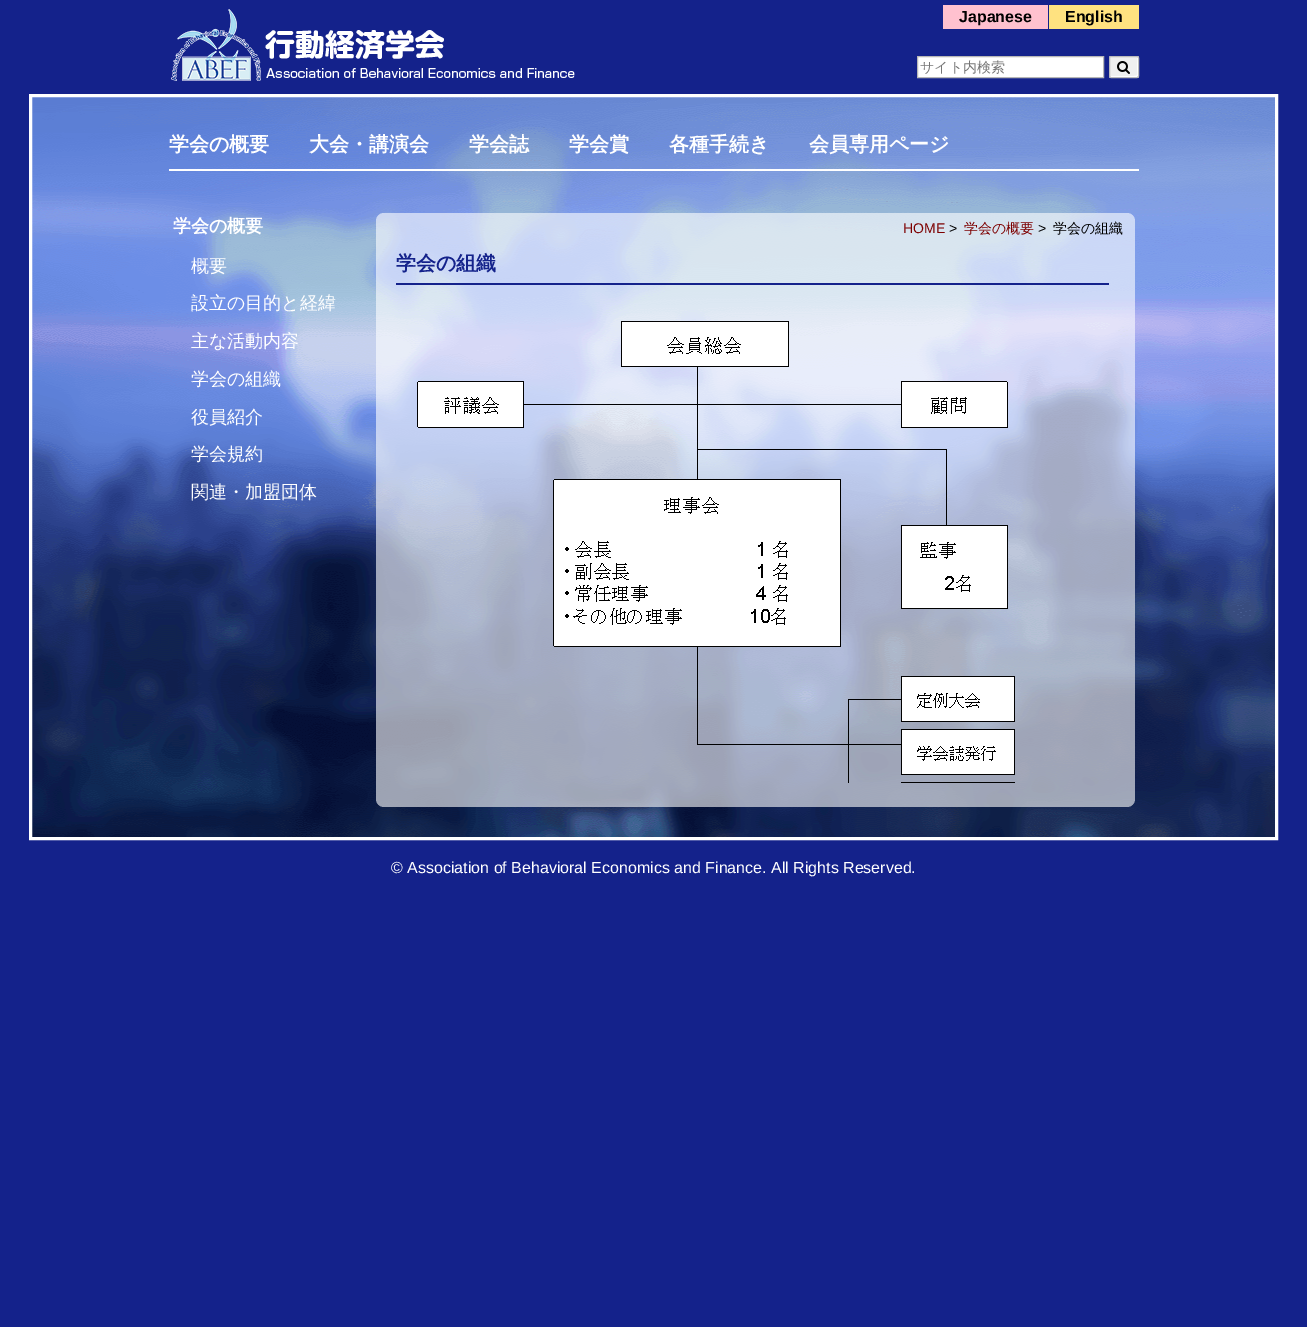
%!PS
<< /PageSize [1307 1327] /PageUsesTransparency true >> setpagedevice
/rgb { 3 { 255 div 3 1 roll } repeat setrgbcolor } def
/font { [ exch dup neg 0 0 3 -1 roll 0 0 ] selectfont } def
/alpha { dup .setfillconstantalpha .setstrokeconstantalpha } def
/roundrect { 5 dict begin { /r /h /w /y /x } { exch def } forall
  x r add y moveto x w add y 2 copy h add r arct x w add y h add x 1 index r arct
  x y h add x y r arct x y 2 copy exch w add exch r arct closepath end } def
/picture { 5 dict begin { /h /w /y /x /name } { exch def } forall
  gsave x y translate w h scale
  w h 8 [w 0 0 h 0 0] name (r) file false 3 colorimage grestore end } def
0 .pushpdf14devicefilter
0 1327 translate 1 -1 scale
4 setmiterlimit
20 34 139 rgb
0 0 1307 1327 rectfill
(img/1.rgb) 171 9 404 72 picture
255 193 207 rgb
943 5 105 24 rectfill
255 226 128 rgb
1049 5 90 24 rectfill
255 255 255 rgb
917.5 56.5 moveto 1103.5 56.5 lineto 1103.5 77.5 lineto 917.5 77.5 lineto closepath gsave fill grestore
183 183 183 rgb
stroke
240 240 240 rgb
1109 56 30 22 2 roundrect fill
255 255 255 rgb
1110 76 moveto 1110 76.5 1110.5 77 1111 77 curveto 1137 77 lineto 1137.5 77 1138 76.5 1138 76 curveto 1138 58 lineto 1137.5 57 lineto 1137 68 lineto 1137.5 75 lineto 1137 76.5 1129 76 1128.5 76 curveto closepath fill
187 187 187 rgb
1109.5 56.5 29 21 1.5 roundrect stroke
(img/2.rgb) 1117 61 13 13 picture
(img/3.rgb) 32 97 1243 740 picture
255 255 255 rgb
3 setlinewidth
30.5 95.5 1246 743 rectstroke
169 169 970 2 rectfill
0.6 alpha
376 213 759 594 8 roundrect fill
1 alpha
20 34 139 rgb
396 283 713 2 rectfill
(img/4.rgb) 417 321 598 462 picture
/LiberationSans-Bold 16 font
0 0 0 rgb
959 22 moveto (Japanese) show
1065 22 moveto (English) show
/WenQuanYiZenHei-Medium 14 font
117 117 117 rgb
920 72 moveto (サイト内検索) show
/WenQuanYiZenHei-Bold 20 font
255 255 255 rgb
[
  [(学会の概要) 169 151]
  [(大会・講演会) 309 151]
  [(学会誌) 469 151]
  [(学会賞) 569 151]
  [(各種手続き) 669 151]
  [(会員専用ページ) 809 151]
] { aload pop moveto show } forall
/WenQuanYiZenHei-Bold 18 font
173 232 moveto (学会の概要) show
/WenQuanYiZenHei-Medium 18 font
[
  [(概要) 191 272]
  [(設立の目的と経緯) 191 309]
  [(主な活動内容) 191 347]
  [(学会の組織) 191 385]
  [(役員紹介) 191 423]
  [(学会規約) 191 460]
  [(関連・加盟団体) 191 498]
] { aload pop moveto show } forall
/LiberationSans-Regular 14 font
125 0 0 rgb
903 233 moveto (HOME) show
0 0 0 rgb
949 233 moveto (>) show
/WenQuanYiZenHei-Medium 14 font
125 0 0 rgb
964 233 moveto (学会の概要) show
/LiberationSans-Regular 14 font
0 0 0 rgb
1038 233 moveto (>) show
/WenQuanYiZenHei-Medium 14 font
1053 233 moveto (学会の組織) show
/WenQuanYiZenHei-Bold 20 font
20 34 139 rgb
396 270 moveto (学会の組織) show
/LiberationSans-Regular 16 font
255 255 255 rgb
391 873 moveto (© Association of Behavioral Economics and Finance. All Rights Reserved.) show
.poppdf14devicefilter showpage
